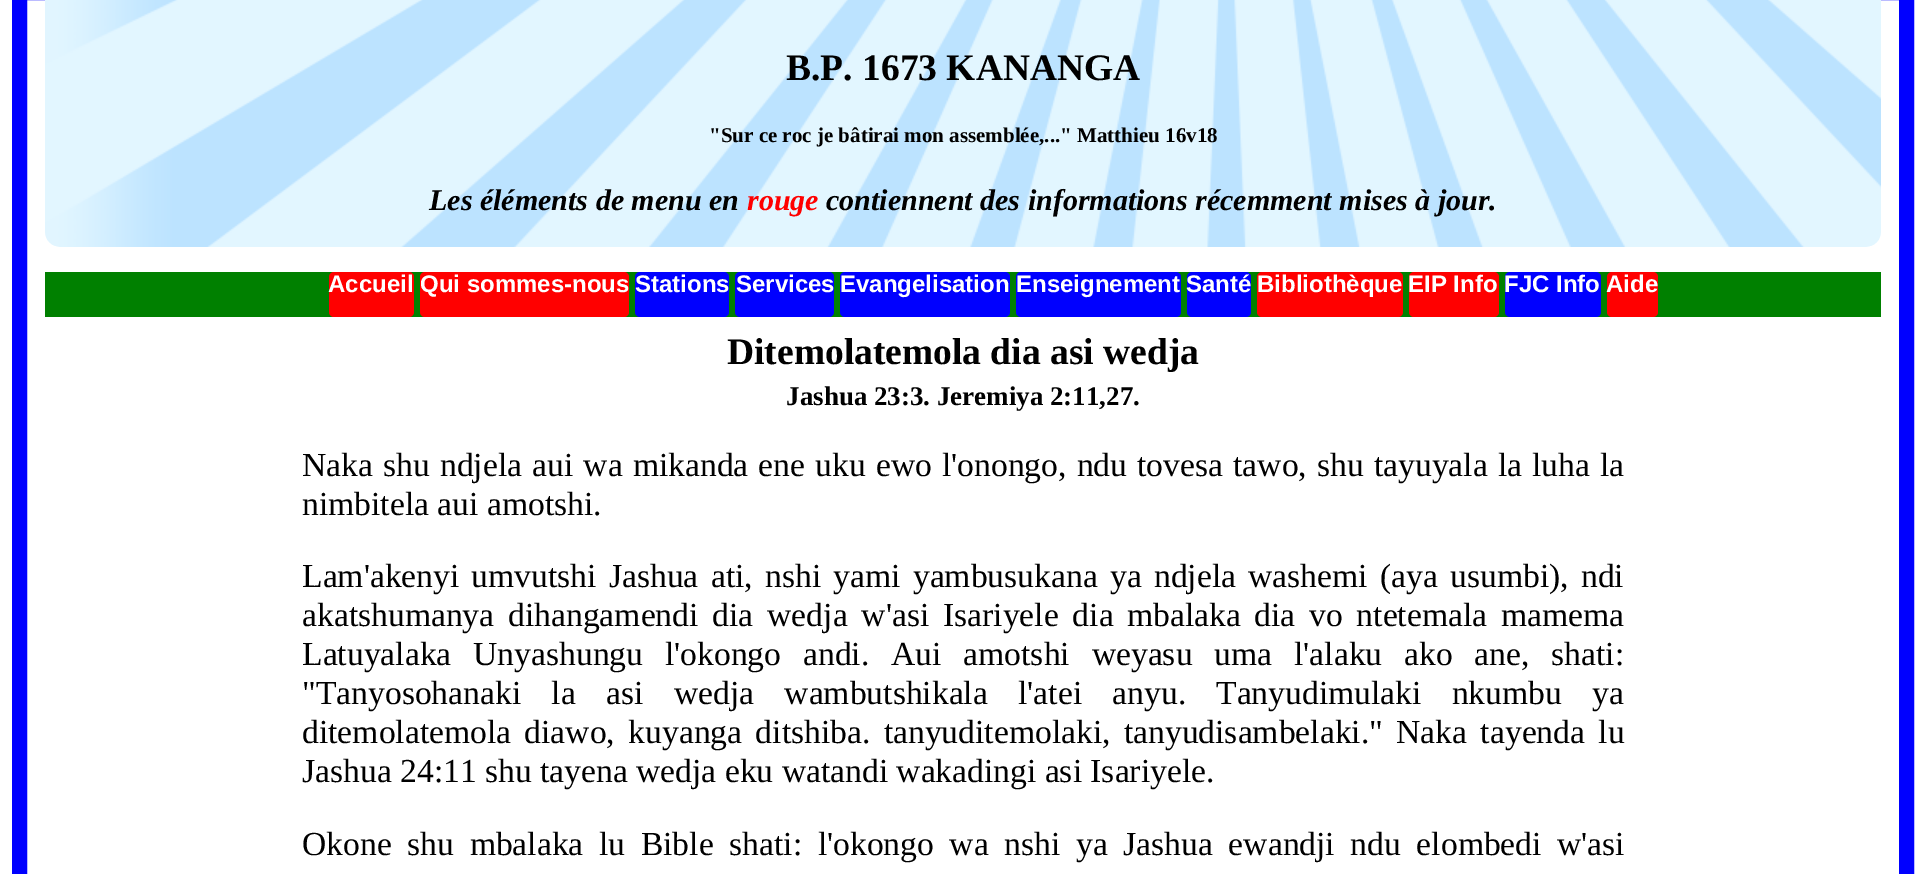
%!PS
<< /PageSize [1926 874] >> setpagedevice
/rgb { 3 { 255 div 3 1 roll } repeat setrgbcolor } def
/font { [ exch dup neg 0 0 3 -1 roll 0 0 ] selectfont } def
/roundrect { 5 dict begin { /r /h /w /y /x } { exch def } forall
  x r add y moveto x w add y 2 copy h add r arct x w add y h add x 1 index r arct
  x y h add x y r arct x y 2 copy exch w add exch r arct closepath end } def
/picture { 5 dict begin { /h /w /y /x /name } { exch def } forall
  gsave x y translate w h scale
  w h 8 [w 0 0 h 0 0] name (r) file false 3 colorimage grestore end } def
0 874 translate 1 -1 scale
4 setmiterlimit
255 255 255 rgb
0 0 1926 874 rectfill
0 0 255 rgb
15 setlinewidth
19.5 -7.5 1887 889 rectstroke
(img/1.rgb) 45 0 1836 247 picture
0 128 0 rgb
45 272 1836 45 rectfill
255 0 0 rgb
329 272 85 45 5 roundrect fill
420 272 209 45 5 roundrect fill
0 0 255 rgb
635 272 94 45 5 roundrect fill
735 272 99 45 5 roundrect fill
840 272 170 45 5 roundrect fill
1016 272 165 45 5 roundrect fill
1187 272 64 45 5 roundrect fill
255 0 0 rgb
1257 272 146 45 5 roundrect fill
1409 272 90 45 5 roundrect fill
0 0 255 rgb
1505 272 96 45 5 roundrect fill
255 0 0 rgb
1607 272 51 45 5 roundrect fill
/LiberationSerif-Bold 37.5 font
0 0 0 rgb
786 80 moveto (B.P. 1673 KANANGA) show
/LiberationSerif-Bold 21 font
709 142 moveto ("Sur ce roc je bâtirai mon assemblée,..." Matthieu 16v18) show
/LiberationSerif-BoldItalic 30 font
429 210 moveto (Les éléments de menu en) show
255 0 0 rgb
747 210 moveto (rouge) show
0 0 0 rgb
826 210 moveto (contiennent des informations récemment mises à jour.) show
/LiberationSans-Bold 24 font
255 255 255 rgb
[
  [(Accueil) 328 292]
  [(Qui sommes-nous) 420 292]
  [(Stations) 635 292]
  [(Services) 736 292]
  [(Evangelisation) 840 292]
  [(Enseignement) 1016 292]
  [(Santé) 1186 292]
  [(Bibliothèque) 1257 292]
  [(EIP Info) 1408 292]
  [(FJC Info) 1504 292]
  [(Aide) 1606 292]
] { aload pop moveto show } forall
/LiberationSerif-Bold 37.5 font
0 0 0 rgb
727 364 moveto (Ditemolatemola dia asi wedja) show
/LiberationSerif-Bold 27 font
786 405 moveto (Jashua 23:3. Jeremiya 2:11,27.) show
/LiberationSerif-Regular 33.6 font
302 476 moveto 1.75 0 32 (Naka shu ndjela aui wa mikanda ene uku ewo l'onongo, ndu tovesa tawo, shu tayuyala la luha la) widthshow
302 515 moveto (nimbitela aui amotshi.) show
302 587 moveto 3.9 0 32 (Lam'akenyi umvutshi Jashua ati, nshi yami yambusukana ya ndjela washemi \(aya usumbi\), ndi) widthshow
302 626 moveto 5.5 0 32 (akatshumanya dihangamendi dia wedja w'asi Isariyele dia mbalaka) widthshow
1254 626 moveto 5.5 0 32 (dia vo ntetemala mamema) widthshow
302 665 moveto 13.5 0 32 (Latuyalaka Unyashungu l'okongo andi. Aui amotshi weyasu uma l'alaku ako ane, shati:) widthshow
302 704 moveto 22 0 32 ("Tanyosohanaki la asi wedja wambutshikala l'atei anyu.) widthshow
1216 704 moveto 22 0 32 (Tanyudimulaki nkumbu ya) widthshow
302 743 moveto 5 0 32 (ditemolatemola diawo, kuyanga ditshiba. tanyuditemolaki, tanyudisambelaki." Naka tayenda lu) widthshow
302 782 moveto (Jashua 24:11 shu tayena wedja eku watandi wakadingi asi Isariyele.) show
302 855 moveto 7.25 0 32 (Okone shu mbalaka lu Bible shati: l'okongo wa nshi ya Jashua ewandji ndu elombedi w'asi) widthshow
showpage
